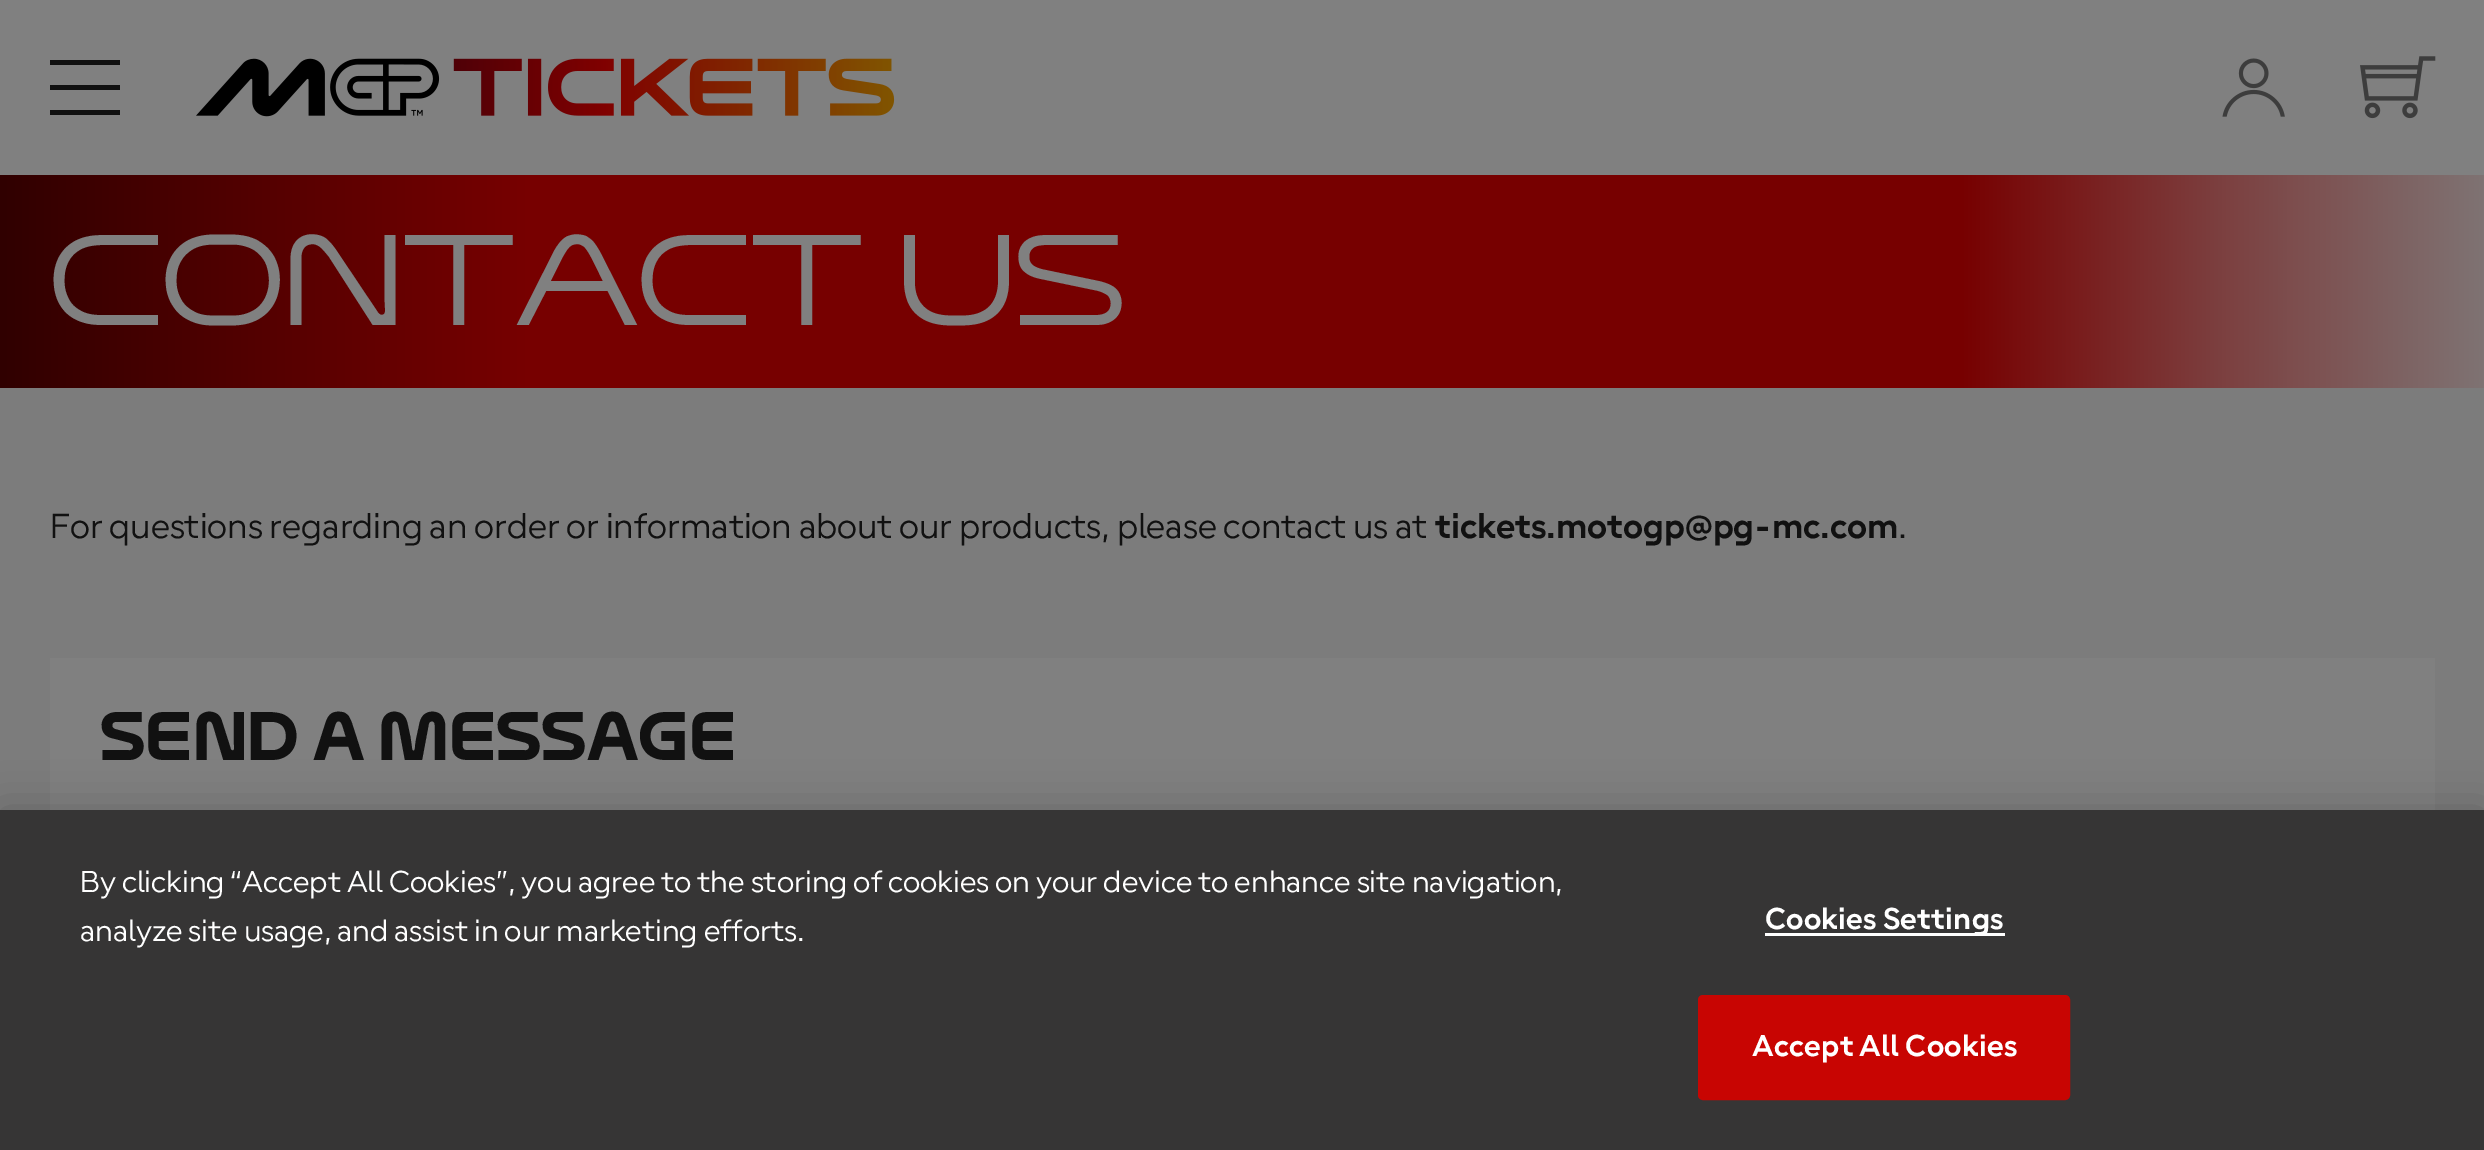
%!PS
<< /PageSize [2484 1150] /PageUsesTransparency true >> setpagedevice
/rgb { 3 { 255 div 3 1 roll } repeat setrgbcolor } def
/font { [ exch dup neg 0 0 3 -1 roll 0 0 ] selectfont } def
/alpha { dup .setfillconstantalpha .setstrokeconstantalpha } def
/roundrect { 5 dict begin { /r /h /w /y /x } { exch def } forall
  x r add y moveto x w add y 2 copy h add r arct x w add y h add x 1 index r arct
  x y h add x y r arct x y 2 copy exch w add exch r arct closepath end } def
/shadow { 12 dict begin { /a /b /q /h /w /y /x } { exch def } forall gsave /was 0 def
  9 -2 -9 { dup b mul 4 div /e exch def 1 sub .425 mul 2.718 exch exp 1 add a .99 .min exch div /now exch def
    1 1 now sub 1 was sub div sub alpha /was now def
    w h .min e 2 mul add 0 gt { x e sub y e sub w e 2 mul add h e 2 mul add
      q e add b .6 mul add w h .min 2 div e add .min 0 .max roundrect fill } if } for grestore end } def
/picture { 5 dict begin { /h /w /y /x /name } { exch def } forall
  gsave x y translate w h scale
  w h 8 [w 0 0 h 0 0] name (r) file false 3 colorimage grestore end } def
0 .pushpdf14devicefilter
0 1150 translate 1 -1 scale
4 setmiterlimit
124 124 124 rgb
0 0 2484 1150 rectfill
[
  [0 0 2484 175 128 128 128]
  [50 60 70 5 17 17 17]
  [50 85 70 5 17 17 17]
  [50 110 70 5 17 17 17]
] { aload pop rgb rectfill } forall
(img/1.rgb) 196 58 699 59 picture
(img/2.rgb) 2222 58 63 59 picture
(img/3.rgb) 2360 56 76 63 picture
119 0 0 rgb
525 175 1435 213 rectfill
gsave 0 175 moveto 525 175 lineto 525 388 lineto 0 388 lineto closepath clip newpath
<< /ShadingType 2 /ColorSpace /DeviceRGB /Coords [525 281 0 281] /Extend [true true] /Function << /FunctionType 2 /Domain [0 1] /C0 [0.467 0 0] /C1 [0.188 0 0] /N 1 >> >> shfill grestore
gsave 1960 175 moveto 2484 175 lineto 2484 388 lineto 1960 388 lineto closepath clip newpath
<< /ShadingType 2 /ColorSpace /DeviceRGB /Coords [1960 281 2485 281] /Extend [true true] /Function << /FunctionType 3 /Domain [0 1] /Functions [<< /FunctionType 2 /Domain [0 1] /C0 [0.467 0 0] /C1 [0.486 0.255 0.255] /N 1 >> << /FunctionType 2 /Domain [0 1] /C0 [0.486 0.255 0.255] /C1 [0.498 0.451 0.451] /N 1 >>] /Bounds [0.51] /Encode [0 1 0 1] >> >> shfill grestore
128 128 128 rgb
50 658 2385 152 rectfill
0 0 0 rgb
0 810 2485 340 0 22.5 0.2 shadow
54 53 53 rgb
0 810 2484 340 rectfill
255 255 255 rgb
1765 933 240 3 rectfill
200 5 2 rgb
1699.5 996.5 369 102 3.5 roundrect gsave fill grestore
3 setlinewidth
stroke
/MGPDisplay-Light 112.5 font
128 128 128 rgb
50 325 moveto (CONTACT US) show
/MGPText-Regular 37.5 font
17 17 17 rgb
50 538 moveto (For questions regarding an order or information about our products, please contact us at) show
/MGPText-Bold 37.5 font
1435 538 moveto (tickets.motogp@pg-mc.com) show
/MGPText-Regular 37.5 font
1898 538 moveto (.) show
/MGPDisplay-Medium 60 font
100 760 moveto (SEND A MESSAGE) show
/MGPText-Regular 32.5 font
255 255 255 rgb
80 892 moveto (By clicking “Accept All Cookies”, you agree to the storing of cookies on your device to enhance site navigation,) show
80 941 moveto (analyze site usage, and assist in our marketing efforts.) show
/MGPText-Bold 32.5 font
1765 929 moveto 0.3 0 (Cookies Settings) ashow
1752 1056 moveto 0.3 0 (Accept All Cookies) ashow
.poppdf14devicefilter showpage
